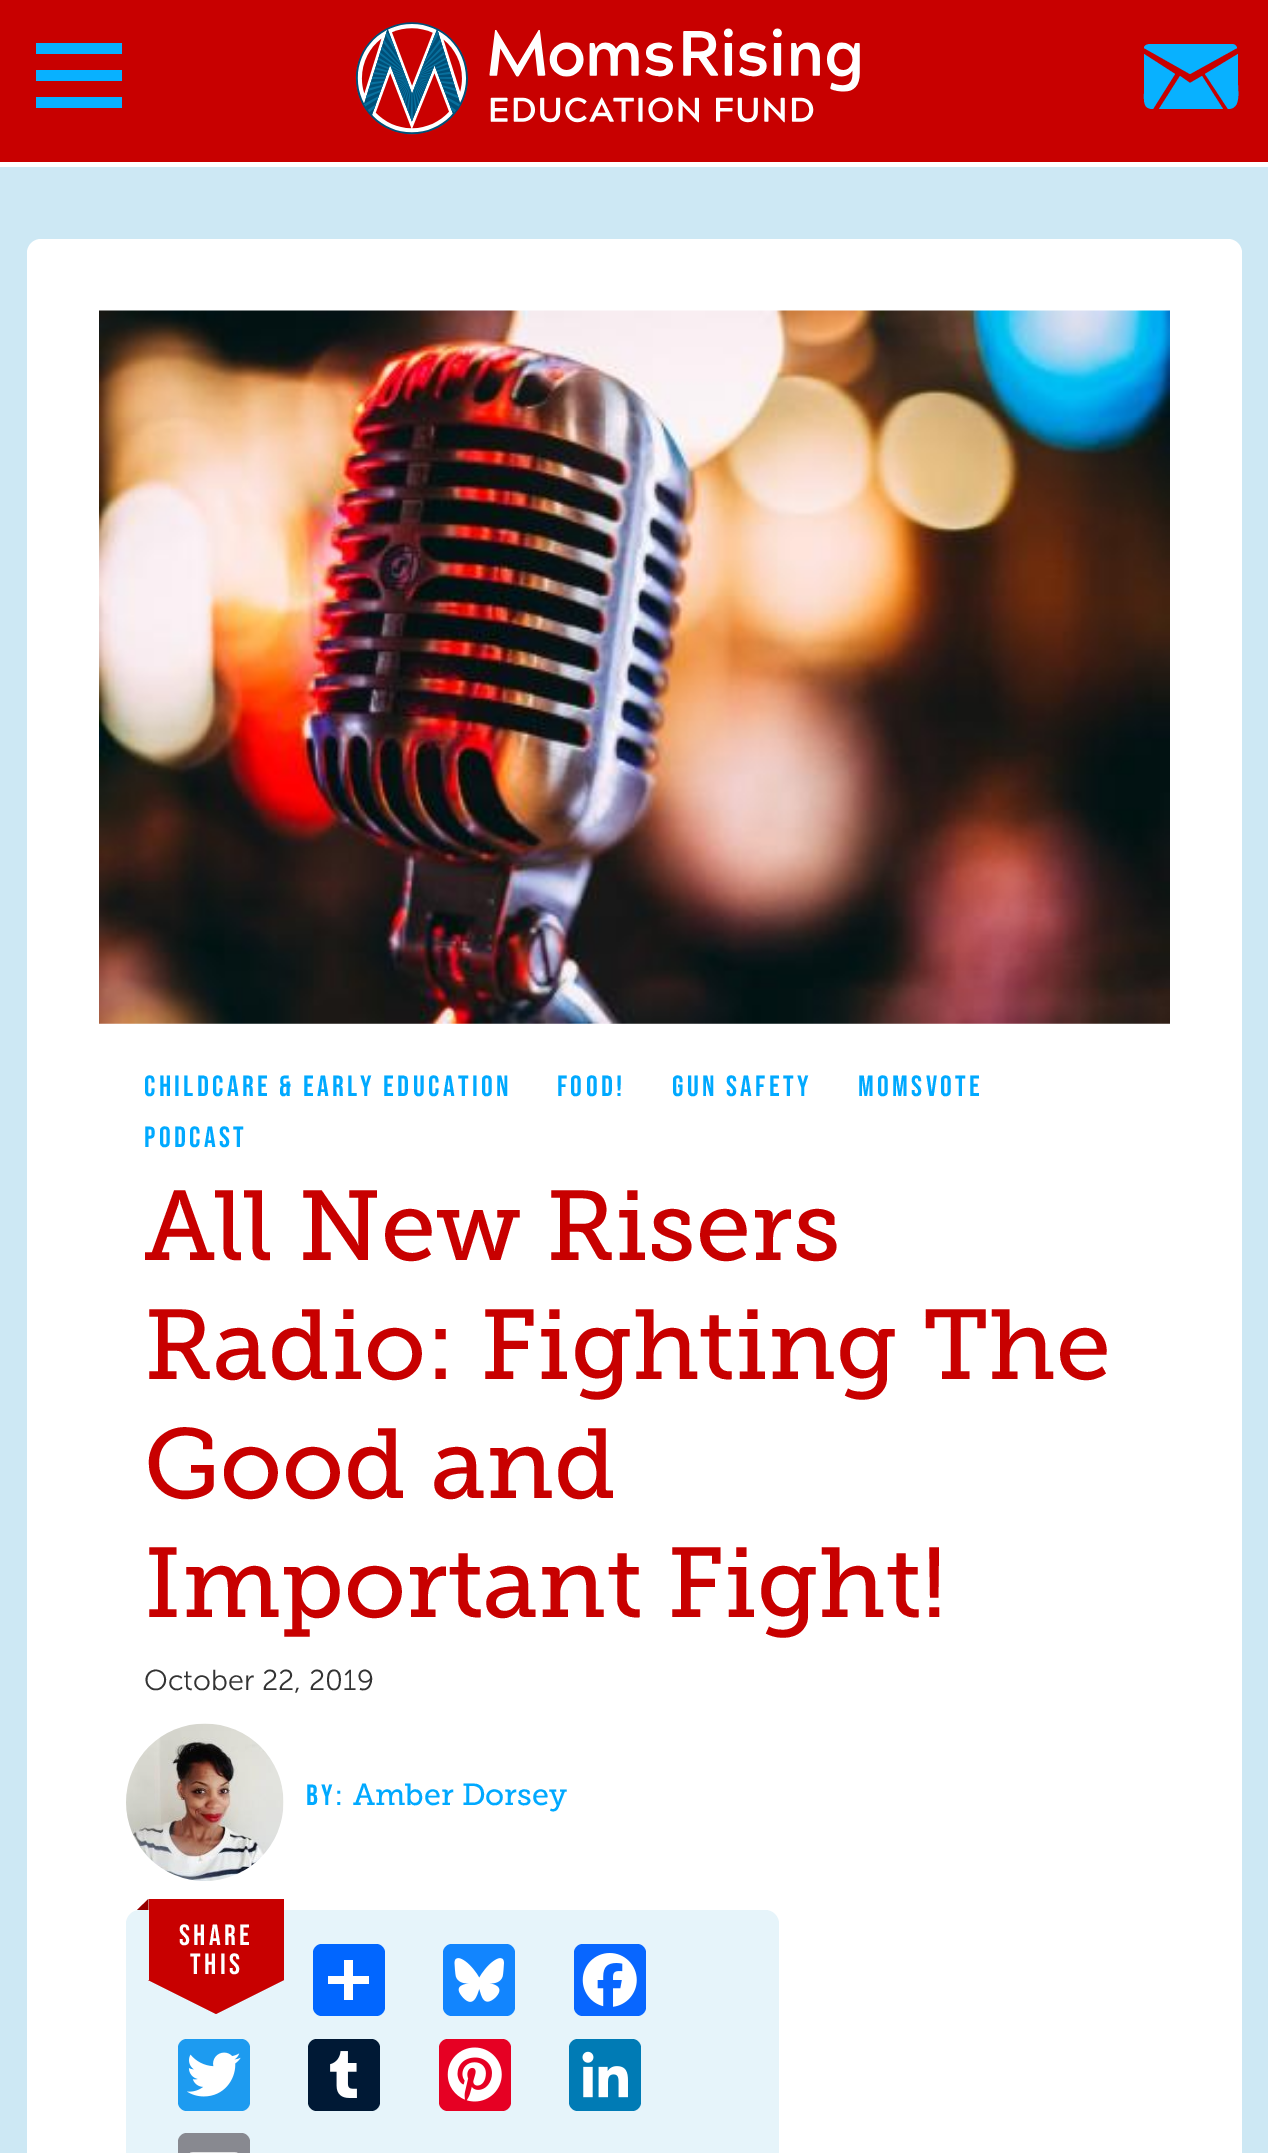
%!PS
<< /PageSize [1268 2153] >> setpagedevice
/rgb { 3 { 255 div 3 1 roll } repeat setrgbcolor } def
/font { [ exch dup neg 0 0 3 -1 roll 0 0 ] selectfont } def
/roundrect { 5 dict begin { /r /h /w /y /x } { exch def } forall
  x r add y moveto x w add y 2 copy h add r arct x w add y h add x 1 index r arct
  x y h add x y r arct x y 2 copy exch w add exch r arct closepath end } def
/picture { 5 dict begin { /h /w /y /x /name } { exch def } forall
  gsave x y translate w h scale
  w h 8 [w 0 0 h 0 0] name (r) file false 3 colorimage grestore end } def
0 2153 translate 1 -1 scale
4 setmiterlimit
205 232 244 rgb
0 0 1268 2153 rectfill
200 0 0 rgb
0 0 1268 162 rectfill
255 255 255 rgb
0 162 1268 5 rectfill
8 177 255 rgb
36 43 moveto 122 43 lineto 122 54 lineto 36 54 lineto closepath 36 70 moveto 122 70 lineto 122 81 lineto 36 81 lineto closepath 36 97 moveto 122 97 lineto 122 108 lineto 36 108 lineto closepath fill
(img/1.rgb) 355 22 505 113 picture
1190 74 moveto 1237 48 lineto 1236 44 1233 44 1230 44 curveto 1151 44 lineto 1148 44 1144 45 1144 48 curveto closepath 1180 76 moveto 1159 109 lineto 1223 109 lineto 1202 76 lineto 1190 83 lineto closepath 1153 109 moveto 1175 74 lineto 1144 54 lineto 1144 93 lineto 1144 101 1143 109 1153 109 curveto closepath 1205 74 moveto 1228 109 lineto 1241 109 1238 92 1238 85 curveto 1238 54 lineto closepath fill
255 255 255 rgb
27 239 1215 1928 14 roundrect fill
(img/2.rgb) 99 310 1071 714 picture
(img/3.rgb) 126 1723 158 158 picture
230 244 250 rgb
126 1910 653 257 14 roundrect fill
200 0 0 rgb
149 1899 135 81 rectfill
149 0 0 rgb
148.5 1910 moveto 137 1910 lineto 148.5 1899 lineto closepath fill
200 0 0 rgb
148 1980 moveto 284 1980 lineto 216 2014 lineto closepath fill
1 102 255 rgb
313 1944 72 72 9 roundrect fill
255 255 255 rgb
344 1960 9 40 rectfill
328 1976 41 8 rectfill
18 133 254 rgb
443 1944 72 72 9 roundrect fill
(img/4.rgb) 454 1958 50 44 picture
8 102 255 rgb
574 1944 72 72 9 roundrect fill
(img/5.rgb) 582 1953 55 54 picture
29 155 240 rgb
178 2039 72 72 9 roundrect fill
(img/6.rgb) 187 2052 54 45 picture
0 25 53 rgb
308 2039 72 72 9 roundrect fill
(img/7.rgb) 330 2051 27 47 picture
230 0 35 rgb
439 2039 72 72 9 roundrect fill
(img/8.rgb) 447 2047 55 55 picture
0 123 181 rgb
569 2039 72 72 9 roundrect fill
(img/9.rgb) 582 2051 46 47 picture
136 137 144 rgb
178 2133 72 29 9 roundrect fill
(img/10.rgb) 190 2152 48 1 picture
/BebasNeue-Regular 29.25 font
0 169 255 rgb
144 1096 moveto 3.4 0 (CHILDCARE & EARLY EDUCATION) ashow
557 1096 moveto 3.4 0 (FOOD!) ashow
672 1096 moveto 3.4 0 (GUN SAFETY) ashow
858 1096 moveto 3.4 0 (MOMSVOTE) ashow
144 1147 moveto 3.4 0 (PODCAST) ashow
/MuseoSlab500-Regular 99 font
200 0 0 rgb
[
  [(All New Risers) 144 1260]
  [(Radio: Fighting The) 144 1379]
  [(Good and) 144 1498]
  [(Important Fight!) 144 1617]
] { aload pop moveto show } forall
/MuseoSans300-Light 28.75 font
51 51 51 rgb
144 1690 moveto (October 22, 2019) show
/BebasNeue-Regular 29.25 font
0 169 255 rgb
306 1805 moveto 3.4 0 (BY:) ashow
/MuseoSlab500-Regular 30.5 font
353 1805 moveto (Amber Dorsey) show
/BebasNeue-Regular 29.25 font
255 255 255 rgb
179 1945 moveto 3.4 0 (SHARE) ashow
190 1974 moveto 3.4 0 (THIS) ashow
showpage
